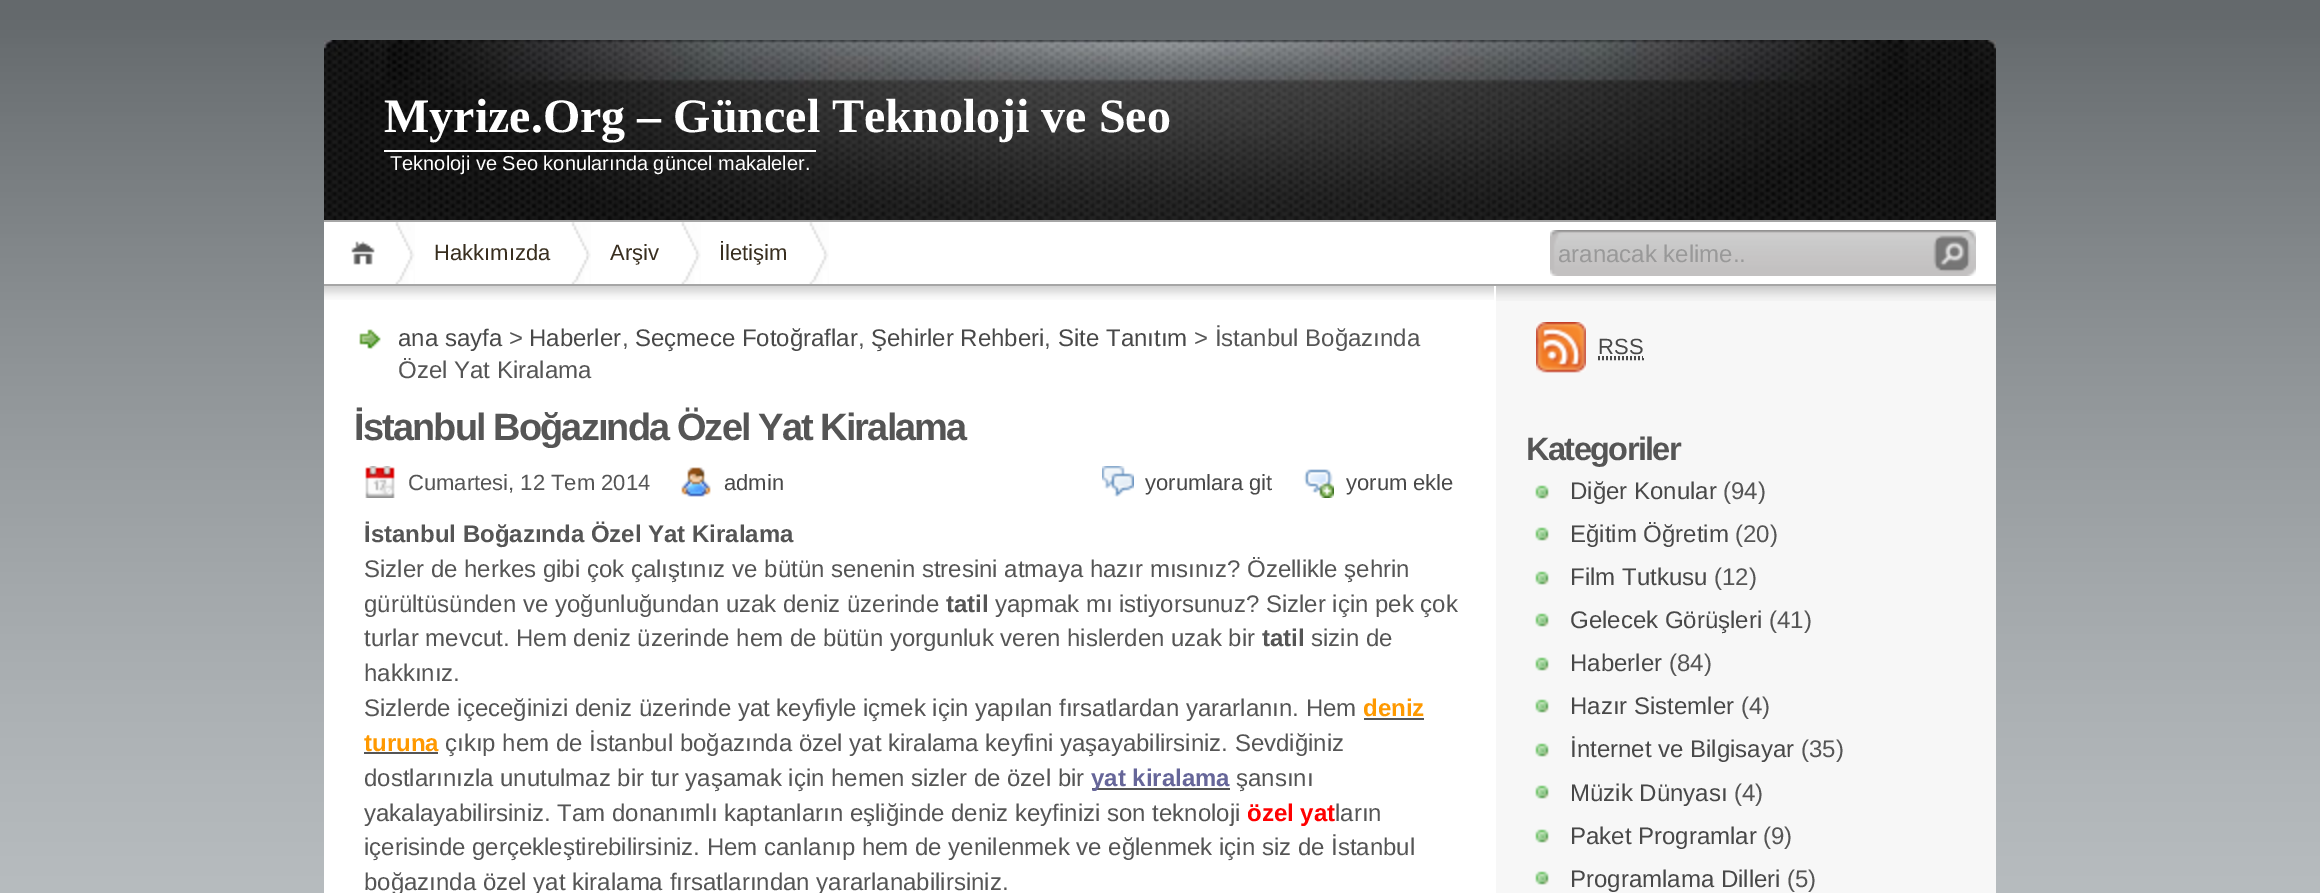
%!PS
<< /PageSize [2320 893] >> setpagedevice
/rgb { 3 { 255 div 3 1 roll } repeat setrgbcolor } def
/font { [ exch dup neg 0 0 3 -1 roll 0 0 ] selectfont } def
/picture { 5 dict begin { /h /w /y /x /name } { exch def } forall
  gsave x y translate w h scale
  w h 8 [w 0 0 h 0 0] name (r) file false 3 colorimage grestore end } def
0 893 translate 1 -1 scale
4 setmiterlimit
255 255 255 rgb
0 0 2320 893 rectfill
(img/1.rgb) 0 0 2320 893 picture
(img/2.rgb) 324 40 1672 180 picture
[
  [324 220 1672 2 166 166 166]
  [384 150 432 2 255 255 255]
  [324 222 1672 62 255 255 255]
  [324 284 1672 2 166 166 166]
] { aload pop rgb rectfill } forall
(img/3.rgb) 351 241 24 24 picture
(img/4.rgb) 395 222 20 62 picture
(img/5.rgb) 571 222 20 62 picture
(img/4.rgb) 681 222 20 62 picture
(img/4.rgb) 809 222 20 62 picture
(img/6.rgb) 1550 230 426 46 picture
255 255 255 rgb
324 286 1172 607 rectfill
(img/7.rgb) 324 286 1170 14 picture
(img/8.rgb) 359 329 22 21 picture
(img/9.rgb) 365 466 30 32 picture
(img/10.rgb) 681 467 30 30 picture
(img/11.rgb) 1102 466 32 31 picture
(img/12.rgb) 1303 469 31 29 picture
[
  [1364 718 60 2 85 85 85]
  [364 752 74 2 85 85 85]
  [1092 788 138 2 85 85 85]
  [1496 301 500 592 247 247 247]
] { aload pop rgb rectfill } forall
(img/13.rgb) 1496 286 500 15 picture
(img/14.rgb) 1536 322 50 51 picture
72 72 72 rgb
2 setlinewidth
[2 2] 0 setdash
1598 359 moveto 1644 359 lineto 1598 357 moveto 1643 357 lineto stroke
(img/15.rgb) 1535 485 14 14 picture
(img/15.rgb) 1535 527 14 14 picture
(img/15.rgb) 1535 571 14 14 picture
(img/15.rgb) 1535 613 14 14 picture
(img/15.rgb) 1535 657 14 14 picture
(img/15.rgb) 1535 699 14 14 picture
(img/15.rgb) 1535 743 14 14 picture
(img/15.rgb) 1535 785 14 14 picture
(img/15.rgb) 1535 829 14 14 picture
(img/15.rgb) 1535 871 14 14 picture
/LiberationSerif-Bold 48 font
255 255 255 rgb
384 132 moveto (Myrize.Org – Güncel Teknoloji ve Seo) show
/LiberationSans-Regular 20 font
390 170 moveto (Teknoloji ve Seo konularında güncel makaleler.) show
/LiberationSans-Regular 22 font
56 46 31 rgb
[
  [(Hakkımızda) 434 260]
  [(Arşiv) 610 260]
  [(İletişim) 719 260]
] { aload pop moveto show } forall
/LiberationSans-Regular 24 font
153 153 153 rgb
1558 262 moveto (aranacak kelime..) show
72 72 72 rgb
398 346 moveto (ana sayfa) show
85 85 85 rgb
509 346 moveto (>) show
72 72 72 rgb
[
  [(Haberler) 529 346]
  [(Seçmece Fotoğraflar) 635 346]
  [(Şehirler Rehberi) 871 346]
  [(Site Tanıtım) 1058 346]
] { aload pop moveto show } forall
85 85 85 rgb
[
  [(> İstanbul Boğazında) 1194 346]
  [(,) 622 346]
  [(,) 858 346]
  [(,) 1044 346]
  [(Özel Yat Kiralama) 398 378]
] { aload pop moveto show } forall
/LiberationSans-Bold 38 font
354 440 moveto -1.9 0 (İstanbul Boğazında Özel Yat Kiralama) ashow
/LiberationSans-Regular 22 font
408 490 moveto (Cumartesi, 12 Tem 2014) show
72 72 72 rgb
[
  [(admin) 724 490]
  [(yorumlara git) 1145 490]
  [(yorum ekle) 1346 490]
] { aload pop moveto show } forall
/LiberationSans-Bold 24 font
85 85 85 rgb
364 542 moveto (İstanbul Boğazında Özel Yat Kiralama) show
/LiberationSans-Regular 24 font
364 577 moveto (Sizler de herkes gibi çok çalıştınız ve bütün senenin stresini atmaya hazır mısınız? Özellikle şehrin) show
364 612 moveto (gürültüsünden ve yoğunluğundan uzak deniz üzerinde) show
/LiberationSans-Bold 24 font
946 612 moveto (tatil) show
/LiberationSans-Regular 24 font
995 612 moveto (yapmak mı istiyorsunuz? Sizler için pek çok) show
364 646 moveto (turlar mevcut. Hem deniz üzerinde hem de bütün yorgunluk veren hislerden uzak bir) show
/LiberationSans-Bold 24 font
1262 646 moveto (tatil) show
/LiberationSans-Regular 24 font
[
  [(sizin de) 1311 646]
  [(hakkınız.) 364 681]
  [(Sizlerde içeceğinizi deniz üzerinde yat keyfiyle içmek için yapılan fırsatlardan yararlanın. Hem) 364 716]
] { aload pop moveto show } forall
/LiberationSans-Bold 24 font
255 153 0 rgb
1363 716 moveto (deniz) show
364 751 moveto (turuna) show
/LiberationSans-Regular 24 font
85 85 85 rgb
445 751 moveto (çıkıp hem de İstanbul boğazında özel yat kiralama keyfini yaşayabilirsiniz. Sevdiğiniz) show
364 786 moveto (dostlarınızla unutulmaz bir tur yaşamak için hemen sizler de özel bir) show
/LiberationSans-Bold 24 font
102 102 153 rgb
1091 786 moveto (yat kiralama) show
/LiberationSans-Regular 24 font
85 85 85 rgb
1236 786 moveto (şansını) show
364 821 moveto (yakalayabilirsiniz. Tam donanımlı kaptanların eşliğinde deniz keyfinizi son teknoloji) show
/LiberationSans-Bold 24 font
255 0 0 rgb
1247 821 moveto (özel yat) show
/LiberationSans-Regular 24 font
85 85 85 rgb
[
  [(ların) 1335 821]
  [(içerisinde gerçekleştirebilirsiniz. Hem canlanıp hem de yenilenmek ve eğlenmek için siz de İstanbul) 364 855]
  [(boğazında özel yat kiralama fırsatlarından yararlanabilirsiniz.) 364 890]
] { aload pop moveto show } forall
/LiberationSans-Regular 22 font
72 72 72 rgb
1598 354 moveto (RSS) show
/LiberationSans-Bold 32.5 font
85 85 85 rgb
1526 460 moveto -1.6 0 (Kategoriler) ashow
/LiberationSans-Regular 24 font
72 72 72 rgb
1570 499 moveto (Diğer Konular) show
85 85 85 rgb
1723 499 moveto (\(94\)) show
72 72 72 rgb
1570 542 moveto (Eğitim Öğretim) show
85 85 85 rgb
1735 542 moveto (\(20\)) show
72 72 72 rgb
1570 585 moveto (Film Tutkusu) show
85 85 85 rgb
1714 585 moveto (\(12\)) show
72 72 72 rgb
1570 628 moveto (Gelecek Görüşleri) show
85 85 85 rgb
1769 628 moveto (\(41\)) show
72 72 72 rgb
1570 671 moveto (Haberler) show
85 85 85 rgb
1669 671 moveto (\(84\)) show
72 72 72 rgb
1570 714 moveto (Hazır Sistemler) show
85 85 85 rgb
1741 714 moveto (\(4\)) show
72 72 72 rgb
1570 757 moveto (İnternet ve Bilgisayar) show
85 85 85 rgb
1801 757 moveto (\(35\)) show
72 72 72 rgb
1570 801 moveto (Müzik Dünyası) show
85 85 85 rgb
1734 801 moveto (\(4\)) show
72 72 72 rgb
1570 844 moveto (Paket Programlar) show
85 85 85 rgb
1763 844 moveto (\(9\)) show
72 72 72 rgb
1570 887 moveto (Programlama Dilleri) show
85 85 85 rgb
1787 887 moveto (\(5\)) show
showpage
